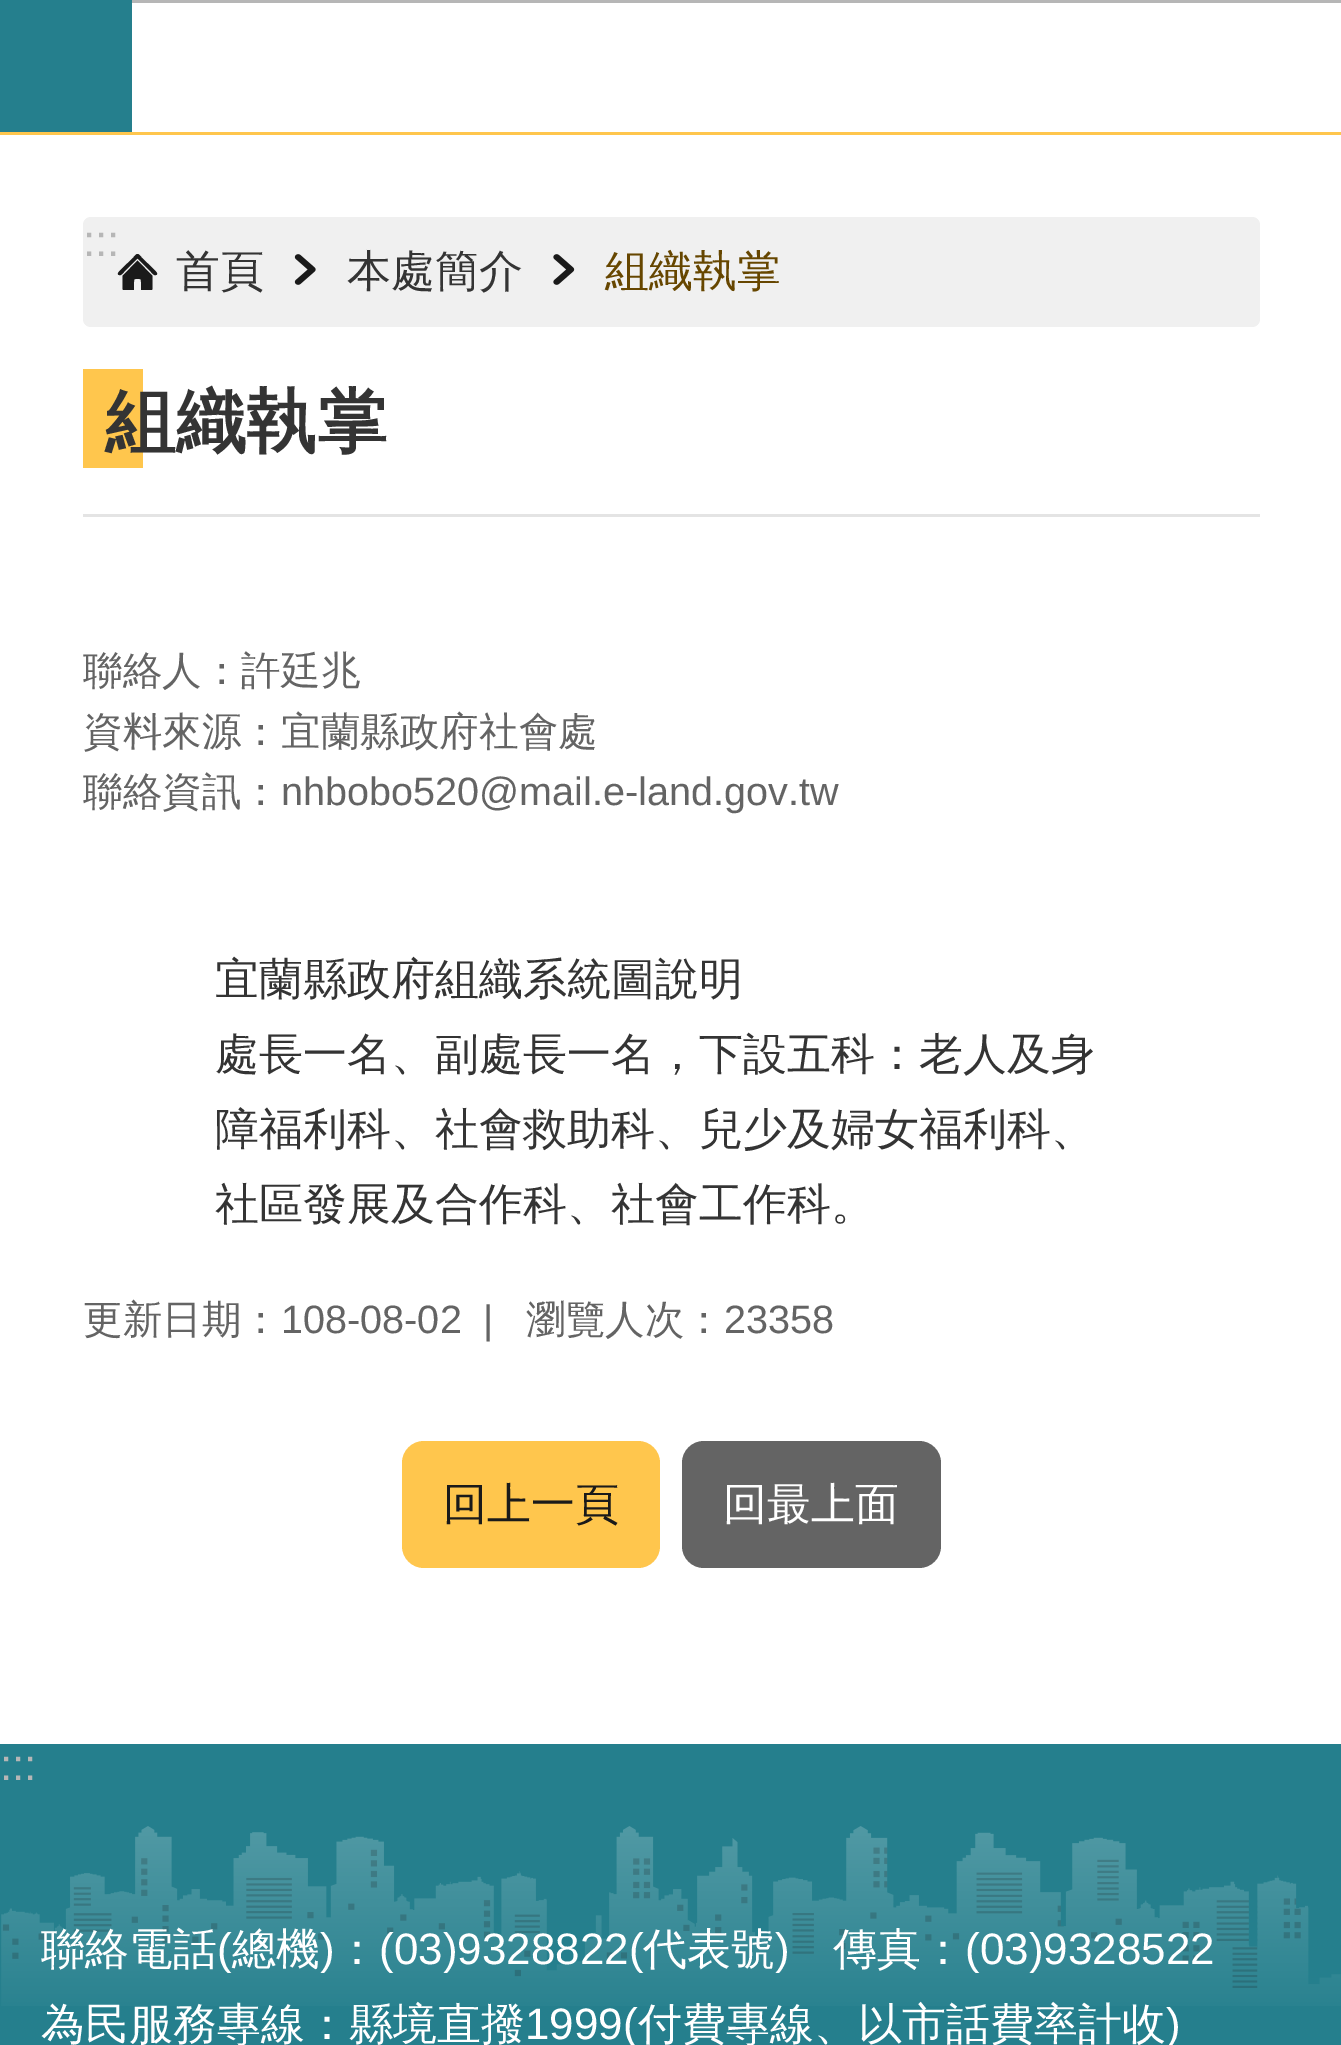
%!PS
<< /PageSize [1341 2045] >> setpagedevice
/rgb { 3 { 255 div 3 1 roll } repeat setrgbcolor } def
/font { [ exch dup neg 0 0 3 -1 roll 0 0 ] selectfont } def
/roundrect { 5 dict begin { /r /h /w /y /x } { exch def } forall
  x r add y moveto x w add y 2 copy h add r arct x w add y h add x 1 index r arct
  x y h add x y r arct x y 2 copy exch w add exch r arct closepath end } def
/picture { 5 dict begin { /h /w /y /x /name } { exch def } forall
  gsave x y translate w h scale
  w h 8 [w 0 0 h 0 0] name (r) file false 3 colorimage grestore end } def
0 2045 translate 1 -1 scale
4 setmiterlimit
255 255 255 rgb
0 0 1341 2045 rectfill
[
  [0 0 132 132 37 127 141]
  [132 0 1209 3 182 182 182]
  [0 132 1341 3 255 198 77]
] { aload pop rgb rectfill } forall
240 240 240 rgb
83 217 1177 110 8 roundrect fill
26 26 26 rgb
122.5 276 moveto 137.5 260.5 lineto 152.5 276 lineto 152.5 288 lineto 152.5 289 152.5 289.5 151.5 290 curveto 141 290 lineto 141 282 lineto 141 278.5 140.5 279 137.5 279 curveto 134.5 279 134 278.5 134 282 curveto 134 290 lineto 123.5 290 lineto 122.5 289.5 122.5 289 122.5 288 curveto closepath 137.5 254 moveto 139 254 141.5 257 141.5 257.5 curveto 153.5 269 lineto 154 270 159.5 274 156 275 curveto 154 276 152 273 151 272 curveto 137.5 258.5 lineto 124 272 lineto 123 273 121 276 119 275 curveto 115.5 274 121 270 121.5 269 curveto 133.5 257.5 lineto 133.5 257 136 254 137.5 254 curveto closepath eofill
(img/1.rgb) 294 254 22 31 picture
(img/2.rgb) 553 254 22 31 picture
228 228 228 rgb
83 514 1177 3 rectfill
255 198 77 rgb
83 369 60 99 rectfill
402 1441 258 127 22 roundrect fill
100 100 100 rgb
682 1441 259 127 22 roundrect fill
37 127 141 rgb
0 1744 1341 301 rectfill
(img/3.rgb) 1 1826 1340 180 picture
/LiberationSans-Regular 44 font
182 182 182 rgb
83 256 moveto (:::) show
/WenQuanYiZenHei-Medium 44 font
52 52 52 rgb
176 286 moveto (首頁) show
347 286 moveto (本處簡介) show
102 70 0 rgb
605 286 moveto (組織執掌) show
/WenQuanYiZenHei-Bold 70.5 font
52 52 52 rgb
105 446 moveto (組織執掌) show
/WenQuanYiZenHei-Medium 39.6 font
100 100 100 rgb
[
  [(聯絡人：許廷兆) 83 684]
  [(資料來源：宜蘭縣政府社會處) 83 745]
  [(聯絡資訊：) 83 805]
] { aload pop moveto show } forall
/LiberationSans-Regular 39.6 font
281 805 moveto (nhbobo520@mail.e-land.gov.tw) show
/WenQuanYiZenHei-Medium 44 font
52 52 52 rgb
[
  [(宜蘭縣政府組織系統圖說明) 215 994]
  [(處長一名、副處長一名，下設五科：老人及身) 215 1069]
  [(障福利科、社會救助科、兒少及婦女福利科、) 215 1144]
  [(社區發展及合作科、社會工作科。) 215 1219]
] { aload pop moveto show } forall
/WenQuanYiZenHei-Medium 39.6 font
100 100 100 rgb
83 1333 moveto (更新日期：) show
/LiberationSans-Regular 39.6 font
281 1333 moveto (108-08-02) show
483 1333 moveto (|) show
/WenQuanYiZenHei-Medium 39.6 font
526 1333 moveto (瀏覽人次：) show
/LiberationSans-Regular 39.6 font
724 1333 moveto (23358) show
/WenQuanYiZenHei-Medium 44 font
26 26 26 rgb
443 1519 moveto (回上一頁) show
255 255 255 rgb
723 1519 moveto (回最上面) show
/LiberationSans-Regular 44 font
182 182 182 rgb
0 1780 moveto (:::) show
/WenQuanYiZenHei-Medium 44 font
255 255 255 rgb
41 1964 moveto (聯絡電話) show
/LiberationSans-Regular 44 font
217 1964 moveto (\() show
/WenQuanYiZenHei-Medium 44 font
232 1964 moveto (總機) show
/LiberationSans-Regular 44 font
320 1964 moveto (\)) show
/WenQuanYiZenHei-Medium 44 font
335 1964 moveto (：) show
/LiberationSans-Regular 44 font
379 1964 moveto (\(03\)9328822\() show
/WenQuanYiZenHei-Medium 44 font
643 1964 moveto (代表號) show
/LiberationSans-Regular 44 font
775 1964 moveto (\)) show
/WenQuanYiZenHei-Medium 44 font
833 1964 moveto (傳真：) show
/LiberationSans-Regular 44 font
965 1964 moveto (\(03\)9328522) show
/WenQuanYiZenHei-Medium 44 font
41 2039 moveto (為民服務專線：縣境直撥) show
/LiberationSans-Regular 44 font
525 2039 moveto (1999\() show
/WenQuanYiZenHei-Medium 44 font
638 2039 moveto (付費專線、以市話費率計收) show
/LiberationSans-Regular 44 font
1166 2039 moveto (\)) show
showpage
